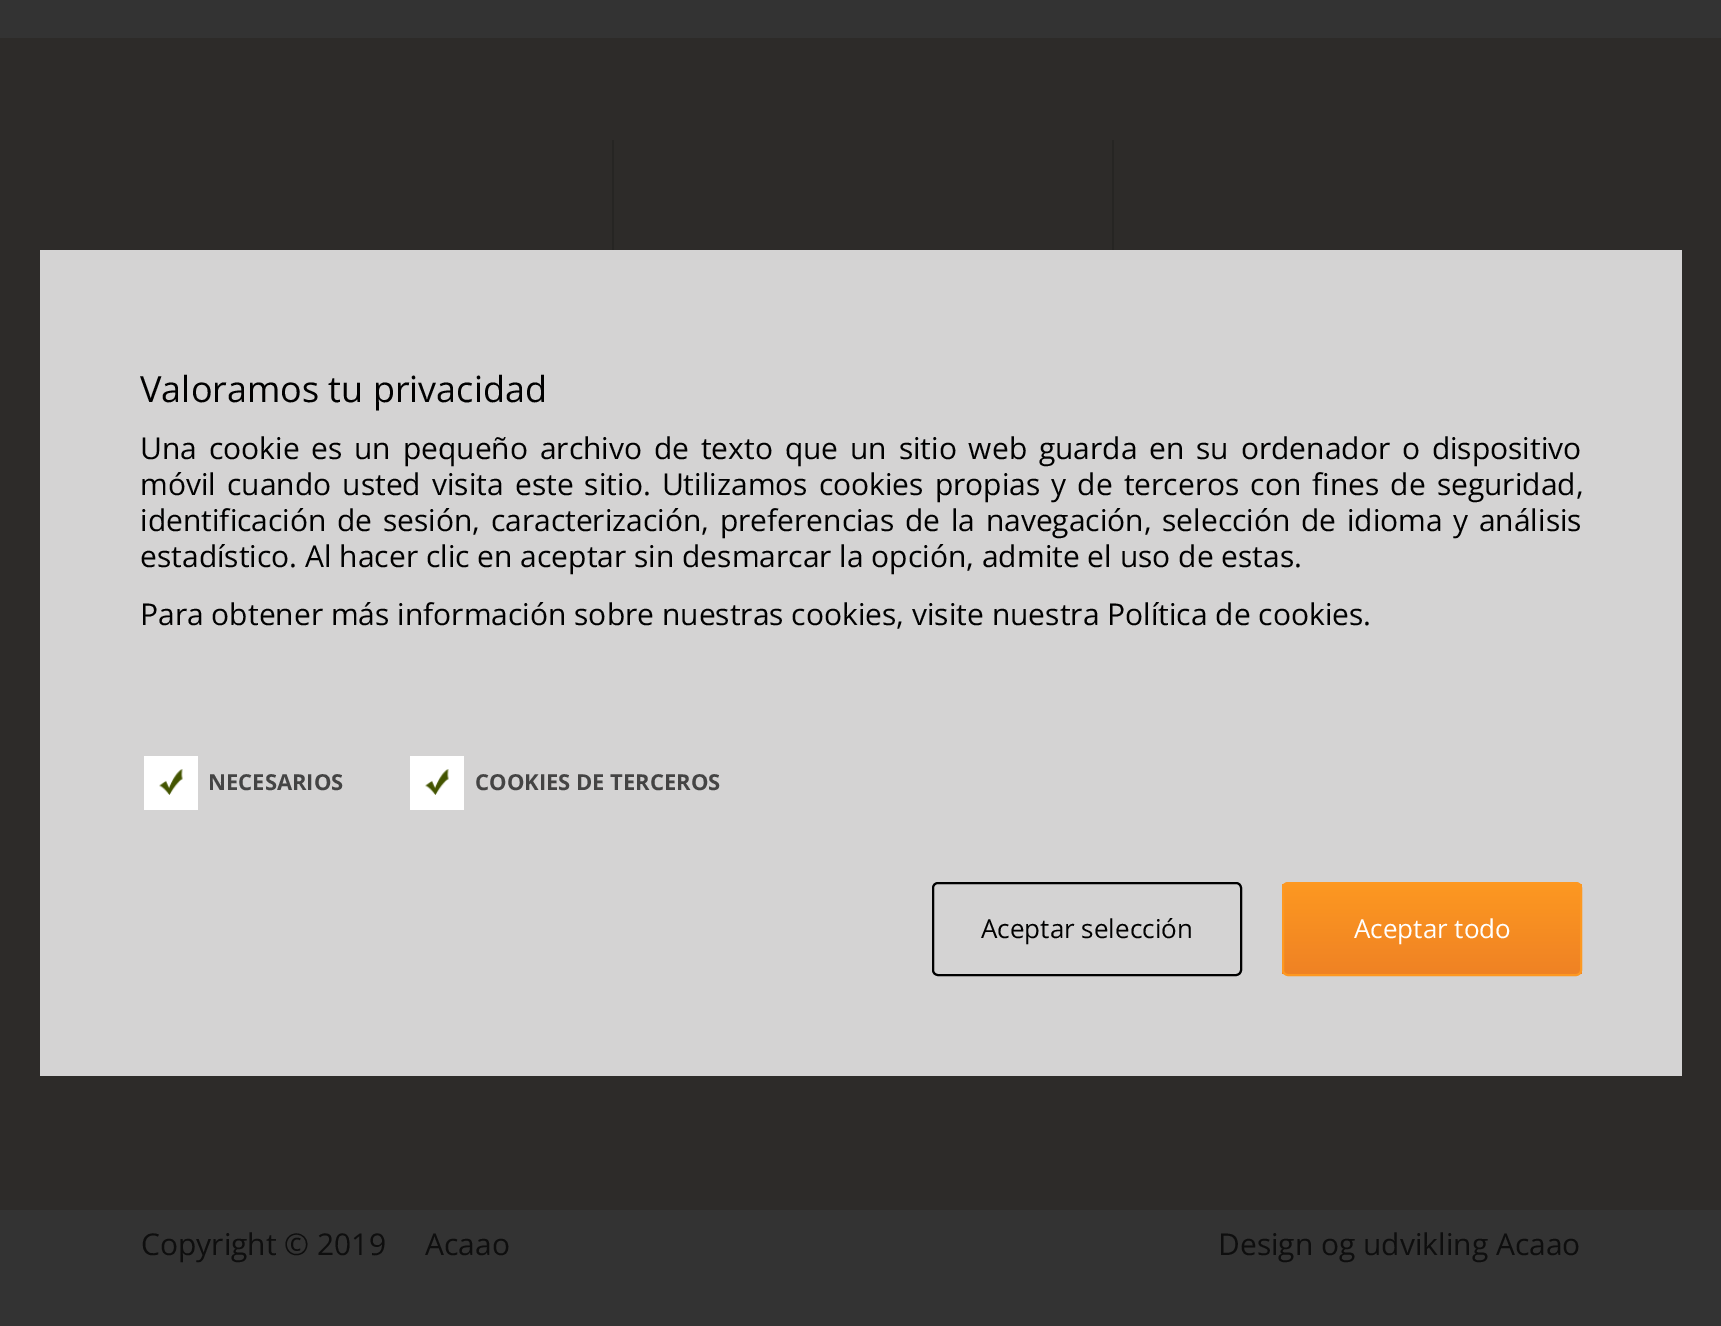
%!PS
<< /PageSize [1721 1326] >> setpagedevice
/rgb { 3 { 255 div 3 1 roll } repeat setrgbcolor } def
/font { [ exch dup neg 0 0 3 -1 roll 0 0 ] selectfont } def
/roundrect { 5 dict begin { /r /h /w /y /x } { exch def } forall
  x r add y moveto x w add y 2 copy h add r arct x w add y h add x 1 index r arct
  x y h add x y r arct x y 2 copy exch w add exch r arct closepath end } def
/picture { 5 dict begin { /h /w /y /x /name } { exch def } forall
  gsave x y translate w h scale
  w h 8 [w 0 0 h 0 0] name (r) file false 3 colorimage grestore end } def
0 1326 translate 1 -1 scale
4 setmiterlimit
51 51 51 rgb
0 0 1721 1326 rectfill
[
  [0 38 1721 1172 45 43 41]
  [40 250 1642 826 212 211 211]
  [612 140 2 110 38 37 35]
  [1112 140 2 110 38 37 35]
  [144 756 54 54 255 255 255]
] { aload pop rgb rectfill } forall
(img/1.rgb) 159 769 24 26 picture
410 756 54 54 rectfill
(img/1.rgb) 425 769 24 26 picture
0 0 0 rgb
2 setlinewidth
933 883 308 92 5 roundrect stroke
gsave
1282 882 300 94 6 roundrect clip newpath
gsave 1282 884 moveto 1582 884 lineto 1582 974 lineto 1282 974 lineto closepath clip newpath
<< /ShadingType 2 /ColorSpace /DeviceRGB /Coords [1432 884 1432 974] /Extend [true true] /Function << /FunctionType 2 /Domain [0 1] /C0 [0.992 0.596 0.129] /C1 [0.937 0.51 0.141] /N 1 >> >> shfill grestore
grestore
253 152 33 rgb
1283 883 298 92 5 roundrect stroke
/OpenSans-Regular 36 font
0 0 0 rgb
140 402 moveto (Valoramos tu privacidad) show
/OpenSans-Regular 30 font
140 459 moveto 4 0 32 (Una cookie es un pequeño archivo de texto que un sitio web guarda en su ordenador o dispositivo) widthshow
140 495 moveto 3.25 0 32 (móvil cuando usted visita este sitio. Utilizamos cookies propias y de terceros con fines de seguridad,) widthshow
140 531 moveto 2.75 0 32 (identificación de sesión, caracterización, preferencias de la navegación, selección de idioma y análisis) widthshow
140 567 moveto (estadístico. Al hacer clic en aceptar sin desmarcar la opción, admite el uso de estas.) show
140 625 moveto (Para obtener más información sobre nuestras cookies, visite nuestra Política de cookies.) show
/OpenSans-Bold 22 font
68 68 68 rgb
208 790 moveto (NECESARIOS) show
475 790 moveto (COOKIES DE TERCEROS) show
/OpenSans-Regular 26 font
0 0 0 rgb
981 938 moveto (Aceptar selección) show
255 255 255 rgb
1354 938 moveto (Aceptar todo) show
/OpenSans-Regular 30 font
14 14 14 rgb
[
  [(Copyright © 2019) 141 1255]
  [(Acaao) 425 1255]
  [(Design og udvikling Acaao) 1218 1255]
] { aload pop moveto show } forall
showpage
